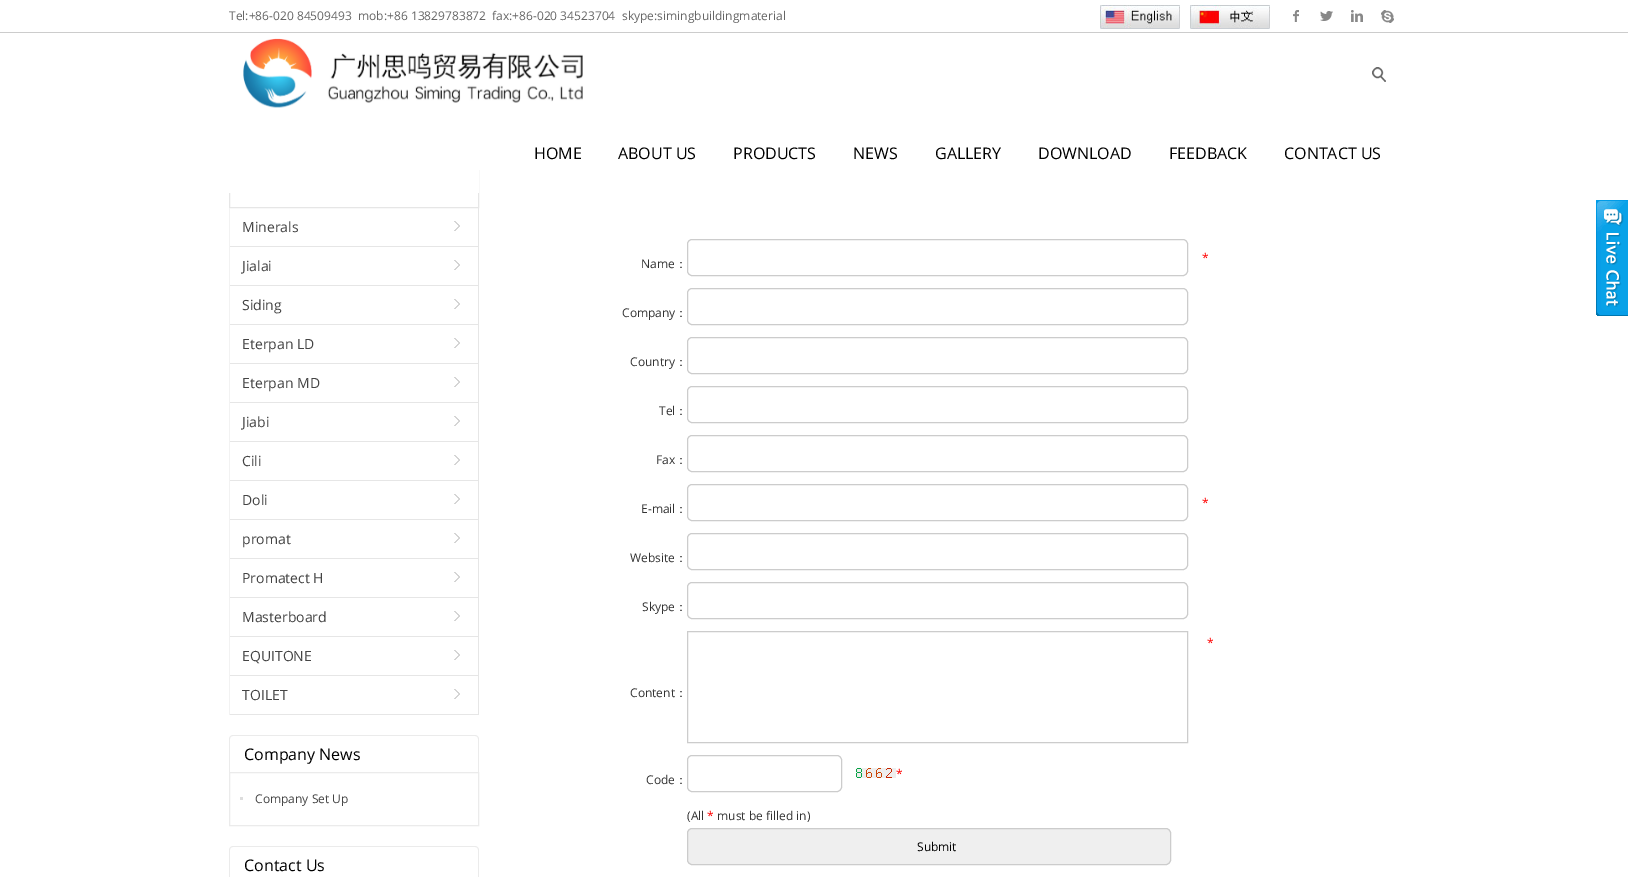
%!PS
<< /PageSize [1628 877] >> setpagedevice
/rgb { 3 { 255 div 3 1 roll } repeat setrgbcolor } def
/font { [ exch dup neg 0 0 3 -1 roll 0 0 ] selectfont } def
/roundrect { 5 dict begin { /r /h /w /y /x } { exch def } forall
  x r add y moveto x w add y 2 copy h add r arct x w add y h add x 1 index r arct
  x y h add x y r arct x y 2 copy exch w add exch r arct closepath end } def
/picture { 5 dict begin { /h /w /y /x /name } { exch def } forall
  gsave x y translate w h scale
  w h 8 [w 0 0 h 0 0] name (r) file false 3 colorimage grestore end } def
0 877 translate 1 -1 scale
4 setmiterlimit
255 255 255 rgb
0 0 1628 877 rectfill
(img/1.rgb) 1100 5 80 24 picture
(img/2.rgb) 1190 5 80 24 picture
(img/3.rgb) 1293 10 6 12 picture
(img/4.rgb) 1320 11 13 10 picture
(img/5.rgb) 1351 10 12 12 picture
(img/6.rgb) 1381 10 13 13 picture
230 230 230 rgb
229.5 170.5 249 37 rectstroke
255 255 255 rgb
229 170 250 23 rectfill
204 204 204 rgb
0 32 1628 1 rectfill
(img/7.rgb) 243 38 340 70 picture
(img/8.rgb) 1372 67 14 15 picture
230 230 230 rgb
478 208 1 507 rectfill
(img/9.rgb) 454 221 6 10 picture
229 246 249 1 rectfill
242 242 242 rgb
229 208 1 39 rectfill
(img/9.rgb) 454 260 6 10 picture
230 230 230 rgb
229 285 249 1 rectfill
242 242 242 rgb
229 247 1 39 rectfill
(img/9.rgb) 454 299 6 10 picture
230 230 230 rgb
229 324 249 1 rectfill
242 242 242 rgb
229 286 1 39 rectfill
(img/9.rgb) 454 338 6 10 picture
230 230 230 rgb
229 363 249 1 rectfill
242 242 242 rgb
229 325 1 39 rectfill
(img/9.rgb) 454 377 6 10 picture
230 230 230 rgb
229 402 249 1 rectfill
242 242 242 rgb
229 364 1 39 rectfill
(img/9.rgb) 454 416 6 10 picture
230 230 230 rgb
229 441 249 1 rectfill
242 242 242 rgb
229 403 1 39 rectfill
(img/9.rgb) 454 455 6 10 picture
230 230 230 rgb
229 480 249 1 rectfill
242 242 242 rgb
229 442 1 39 rectfill
(img/9.rgb) 454 494 6 10 picture
230 230 230 rgb
229 519 249 1 rectfill
242 242 242 rgb
229 481 1 39 rectfill
(img/9.rgb) 454 533 6 10 picture
230 230 230 rgb
229 558 249 1 rectfill
242 242 242 rgb
229 520 1 39 rectfill
(img/9.rgb) 454 572 6 10 picture
230 230 230 rgb
229 597 249 1 rectfill
242 242 242 rgb
229 559 1 39 rectfill
(img/9.rgb) 454 611 6 10 picture
230 230 230 rgb
229 636 249 1 rectfill
242 242 242 rgb
229 598 1 39 rectfill
(img/9.rgb) 454 650 6 10 picture
230 230 230 rgb
229 675 249 1 rectfill
242 242 242 rgb
229 637 1 39 rectfill
(img/9.rgb) 454 689 6 10 picture
230 230 230 rgb
229 714 249 1 rectfill
242 242 242 rgb
229 676 1 39 rectfill
235 235 235 rgb
233 735 moveto 475 735 lineto 477 735 479 737 479 739 curveto 479 772 lineto 229 772 lineto 229 739 lineto 229 737 231 735 233 735 curveto closepath 233 736 moveto 475 736 lineto 477 736 478 737 478 739 curveto 478 772 lineto 230 772 lineto 230 739 lineto 230 737 231 736 233 736 curveto closepath eofill
229.5 772.5 249 53 rectstroke
221 221 221 rgb
240 797 3 3 rectfill
235 235 235 rgb
233 846 moveto 475 846 lineto 477 846 479 848 479 850 curveto 479 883 lineto 229 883 lineto 229 850 lineto 229 848 231 846 233 846 curveto closepath 233 847 moveto 475 847 lineto 477 847 478 848 478 850 curveto 478 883 lineto 230 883 lineto 230 850 lineto 230 848 231 847 233 847 curveto closepath eofill
204 204 204 rgb
687.5 239.5 500 36 4.5 roundrect stroke
687.5 288.5 500 36 4.5 roundrect stroke
687.5 337.5 500 36 4.5 roundrect stroke
687.5 386.5 500 36 4.5 roundrect stroke
687.5 435.5 500 36 4.5 roundrect stroke
687.5 484.5 500 36 4.5 roundrect stroke
687.5 533.5 500 36 4.5 roundrect stroke
687.5 582.5 500 36 4.5 roundrect stroke
687.5 631.5 500 111 rectstroke
687.5 755.5 154 36 4.5 roundrect stroke
(img/10.rgb) 856 768 40 10 picture
239 239 239 rgb
687.5 828.5 483 36 4.5 roundrect gsave fill grestore
204 204 204 rgb
stroke
(img/11.rgb) 1596 200 1 1 picture
(img/12.rgb) 1596 200 32 116 picture
/OpenSans-Regular 12 font
102 102 102 rgb
[
  [(Tel:+86-020 84509493) 229 20]
  [(mob:+86 13829783872) 358 20]
  [(fax:+86-020 34523704) 492 20]
  [(skype:simingbuildingmaterial) 622 20]
] { aload pop moveto show } forall
/OpenSans-Regular 16 font
0 0 0 rgb
[
  [(HOME) 534 159]
  [(ABOUT US) 618 159]
  [(PRODUCTS) 733 159]
  [(NEWS) 853 159]
  [(GALLERY) 935 159]
  [(DOWNLOAD) 1038 159]
  [(FEEDBACK) 1169 159]
  [(CONTACT US) 1284 159]
] { aload pop moveto show } forall
/OpenSans-Regular 14 font
68 68 68 rgb
[
  [(Minerals) 242 232]
  [(Jialai) 242 271]
  [(Siding) 242 310]
  [(Eterpan LD) 242 349]
  [(Eterpan MD) 242 388]
  [(Jiabi) 242 427]
  [(Cili) 242 466]
  [(Doli) 242 505]
  [(promat) 242 544]
  [(Promatect H) 242 583]
  [(Masterboard) 242 622]
  [(EQUITONE) 242 661]
  [(TOILET) 242 700]
] { aload pop moveto show } forall
/OpenSans-Regular 16 font
0 0 0 rgb
244 760 moveto (Company News) show
/OpenSans-Regular 12 font
68 68 68 rgb
255 803 moveto (Company Set Up) show
/OpenSans-Regular 16 font
0 0 0 rgb
244 871 moveto (Contact Us) show
/OpenSans-Regular 12 font
255 0 0 rgb
1202 262 moveto (*) show
51 51 51 rgb
641 268 moveto (Name) show
/WenQuanYiZenHei-Medium 12 font
675 268 moveto (：) show
/OpenSans-Regular 12 font
622 317 moveto (Company) show
/WenQuanYiZenHei-Medium 12 font
675 317 moveto (：) show
/OpenSans-Regular 12 font
630 366 moveto (Country) show
/WenQuanYiZenHei-Medium 12 font
675 366 moveto (：) show
/OpenSans-Regular 12 font
659 415 moveto (Tel) show
/WenQuanYiZenHei-Medium 12 font
675 415 moveto (：) show
/OpenSans-Regular 12 font
656 464 moveto (Fax) show
/WenQuanYiZenHei-Medium 12 font
675 464 moveto (：) show
/OpenSans-Regular 12 font
255 0 0 rgb
1202 507 moveto (*) show
51 51 51 rgb
641 513 moveto (E-mail) show
/WenQuanYiZenHei-Medium 12 font
675 513 moveto (：) show
/OpenSans-Regular 12 font
630 562 moveto (Website) show
/WenQuanYiZenHei-Medium 12 font
675 562 moveto (：) show
/OpenSans-Regular 12 font
642 611 moveto (Skype) show
/WenQuanYiZenHei-Medium 12 font
675 611 moveto (：) show
/OpenSans-Regular 12 font
255 0 0 rgb
1207 647 moveto (*) show
51 51 51 rgb
630 697 moveto (Content) show
/WenQuanYiZenHei-Medium 12 font
675 697 moveto (：) show
/OpenSans-Regular 12 font
255 0 0 rgb
896 778 moveto (*) show
51 51 51 rgb
646 784 moveto (Code) show
/WenQuanYiZenHei-Medium 12 font
675 784 moveto (：) show
/OpenSans-Regular 12 font
687 820 moveto (\(All) show
255 0 0 rgb
707 820 moveto (*) show
51 51 51 rgb
717 820 moveto (must be filled in\)) show
0 0 0 rgb
917 851 moveto (Submit) show
showpage
